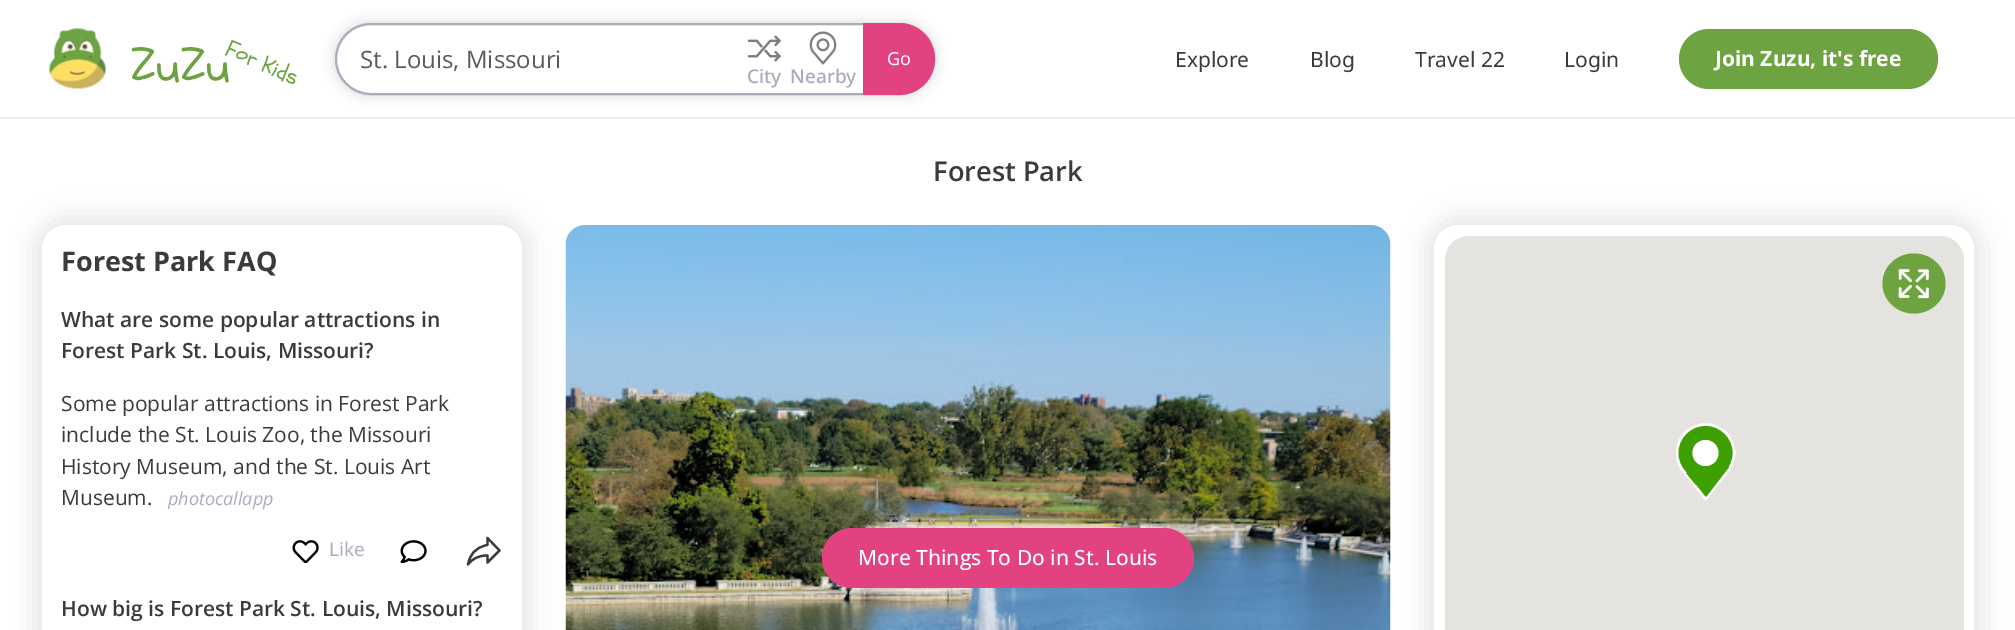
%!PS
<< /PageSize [2015 630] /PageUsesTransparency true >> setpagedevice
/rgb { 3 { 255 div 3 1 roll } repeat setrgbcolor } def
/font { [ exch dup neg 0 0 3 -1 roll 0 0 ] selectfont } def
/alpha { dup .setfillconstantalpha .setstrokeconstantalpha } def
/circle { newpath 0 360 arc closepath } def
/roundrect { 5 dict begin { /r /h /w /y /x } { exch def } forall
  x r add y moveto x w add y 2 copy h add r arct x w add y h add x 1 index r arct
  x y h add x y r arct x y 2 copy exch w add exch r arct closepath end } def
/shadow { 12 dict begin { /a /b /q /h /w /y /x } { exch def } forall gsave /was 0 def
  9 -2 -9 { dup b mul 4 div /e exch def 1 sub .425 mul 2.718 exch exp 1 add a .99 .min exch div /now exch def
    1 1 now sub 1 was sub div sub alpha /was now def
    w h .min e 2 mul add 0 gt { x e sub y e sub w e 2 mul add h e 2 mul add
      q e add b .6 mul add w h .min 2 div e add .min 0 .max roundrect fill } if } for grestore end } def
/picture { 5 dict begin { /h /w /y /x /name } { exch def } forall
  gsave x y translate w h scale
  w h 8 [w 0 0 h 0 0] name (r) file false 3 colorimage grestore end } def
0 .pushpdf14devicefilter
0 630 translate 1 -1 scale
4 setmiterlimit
255 255 255 rgb
0 0 2015 630 rectfill
238 238 241 rgb
0 117 2015 2 rectfill
(img/1.rgb) 49 28 58 61 picture
(img/2.rgb) 131 40 166 44 picture
50 50 50 rgb
335 23 600 72 36 6 0.2 shadow
255 255 255 rgb
336 24 598 70 35 roundrect gsave fill grestore
170 171 187 rgb
2 setlinewidth
stroke
226 67 128 rgb
863 23 moveto 899 23 lineto 919 23 935 39 935 59 curveto 935 79 919 95 899 95 curveto 863 95 lineto closepath fill
(img/3.rgb) 747 35 34 27 picture
(img/4.rgb) 809 31 28 34 picture
109 163 65 rgb
1679 29 259 60 30 roundrect fill
gsave
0 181 moveto 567 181 lineto 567 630 lineto 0 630 lineto closepath 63 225 moveto 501 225 lineto 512.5 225 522 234.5 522 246 curveto 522 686 lineto 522 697.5 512.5 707 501 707 curveto 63 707 lineto 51.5 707 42 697.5 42 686 curveto 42 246 lineto 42 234.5 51.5 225 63 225 curveto closepath eoclip newpath
0 0 0 rgb
35 218 495 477 29 12 0.1 shadow
grestore
(img/5.rgb) 292 540 27 24 picture
(img/6.rgb) 400 540 27 24 picture
59 59 59 rgb
2.2 setlinewidth
1 setlinejoin
468 564.5 moveto 472.5 558.5 478.5 555.5 487.5 555.5 curveto 487.5 562.5 lineto 499.5 550.5 lineto 487.5 538 lineto 487.5 545 lineto 475 547 469.5 555.5 468 564.5 curveto closepath stroke
(img/7.rgb) 565 225 826 405 picture
gsave
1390 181 moveto 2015 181 lineto 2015 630 lineto 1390 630 lineto closepath 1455 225 moveto 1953 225 lineto 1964.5 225 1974 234.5 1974 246 curveto 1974 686 lineto 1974 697.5 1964.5 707 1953 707 curveto 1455 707 lineto 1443.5 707 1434 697.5 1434 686 curveto 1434 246 lineto 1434 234.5 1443.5 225 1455 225 curveto closepath eoclip newpath
0 0 0 rgb
1427 218 555 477 29 12 0.1 shadow
grestore
229 227 223 rgb
1469 236 moveto 1940 236 lineto 1953.5 236 1964 246.5 1964 260 curveto 1964 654 lineto 1445 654 lineto 1445 260 lineto 1445 246.5 1455.5 236 1469 236 curveto closepath fill
61 160 0 rgb
1706 499 moveto 1727 472 lineto 1687 475 lineto closepath fill
255 255 255 rgb
2.5 setlinewidth
0 setlinejoin
1705.5 499 moveto 1727.5 471.5 lineto 1687 475.5 lineto closepath stroke
61 160 0 rgb
1705.5 453 28.5 circle fill
gsave
1676 423 60 80 rectclip
255 255 255 rgb
1705.5 453 28.5 circle stroke
grestore
255 255 255 rgb
1705.5 453 13 circle fill
61 160 0 rgb
1686 473 moveto 1696 485 lineto 1702 483 lineto 1708 485 lineto 1706 497 lineto 1729 467 lineto closepath fill
109 163 65 rgb
1914 253.5 moveto 1931.5 253.5 1945.5 267 1945.5 283.5 curveto 1945.5 300 1931.5 313.5 1914 313.5 curveto 1896.5 313.5 1882.5 300 1882.5 283.5 curveto 1882.5 267 1896.5 253.5 1914 253.5 curveto closepath fill
(img/8.rgb) 1898 269 31 30 picture
226 67 128 rgb
822 528 372 60 30 roundrect fill
/OpenSans-Regular 24 font
89 92 95 rgb
360 68 moveto (St. Louis, Missouri) show
/NotoSans-Regular 18 font
255 255 255 rgb
887 65 moveto (Go) show
/NotoSans-Medium 19 font
170 171 187 rgb
747 83 moveto (City) show
790 83 moveto (Nearby) show
/NotoSans-Regular 21 font
59 59 59 rgb
[
  [(Explore) 1175 67]
  [(Blog) 1310 67]
  [(Travel 22) 1415 67]
  [(Login) 1564 67]
] { aload pop moveto show } forall
/NotoSans-Bold 21 font
255 255 255 rgb
1715 66 moveto (Join Zuzu, it's free) show
/OpenSans-SemiBold 27.25 font
59 59 59 rgb
933 181 moveto (Forest Park) show
/OpenSans-Bold 27 font
61 271 moveto (Forest Park FAQ) show
/OpenSans-SemiBold 21 font
61 327 moveto (What are some popular attractions in) show
61 358 moveto (Forest Park St. Louis, Missouri?) show
/OpenSans-Regular 21 font
[
  [(Some popular attractions in Forest Park) 61 411]
  [(include the St. Louis Zoo, the Missouri) 61 442]
  [(History Museum, and the St. Louis Art) 61 474]
  [(Museum.) 61 505]
] { aload pop moveto show } forall
/OpenSans-Italic 18 font
170 171 187 rgb
168 505 moveto (photocallapp) show
/OpenSans-Regular 19 font
329 556 moveto (Like) show
/OpenSans-SemiBold 21 font
59 59 59 rgb
61 616 moveto (How big is Forest Park St. Louis, Missouri?) show
/OpenSans-Medium 21 font
255 255 255 rgb
858 565 moveto (More Things To Do in St. Louis) show
.poppdf14devicefilter showpage
